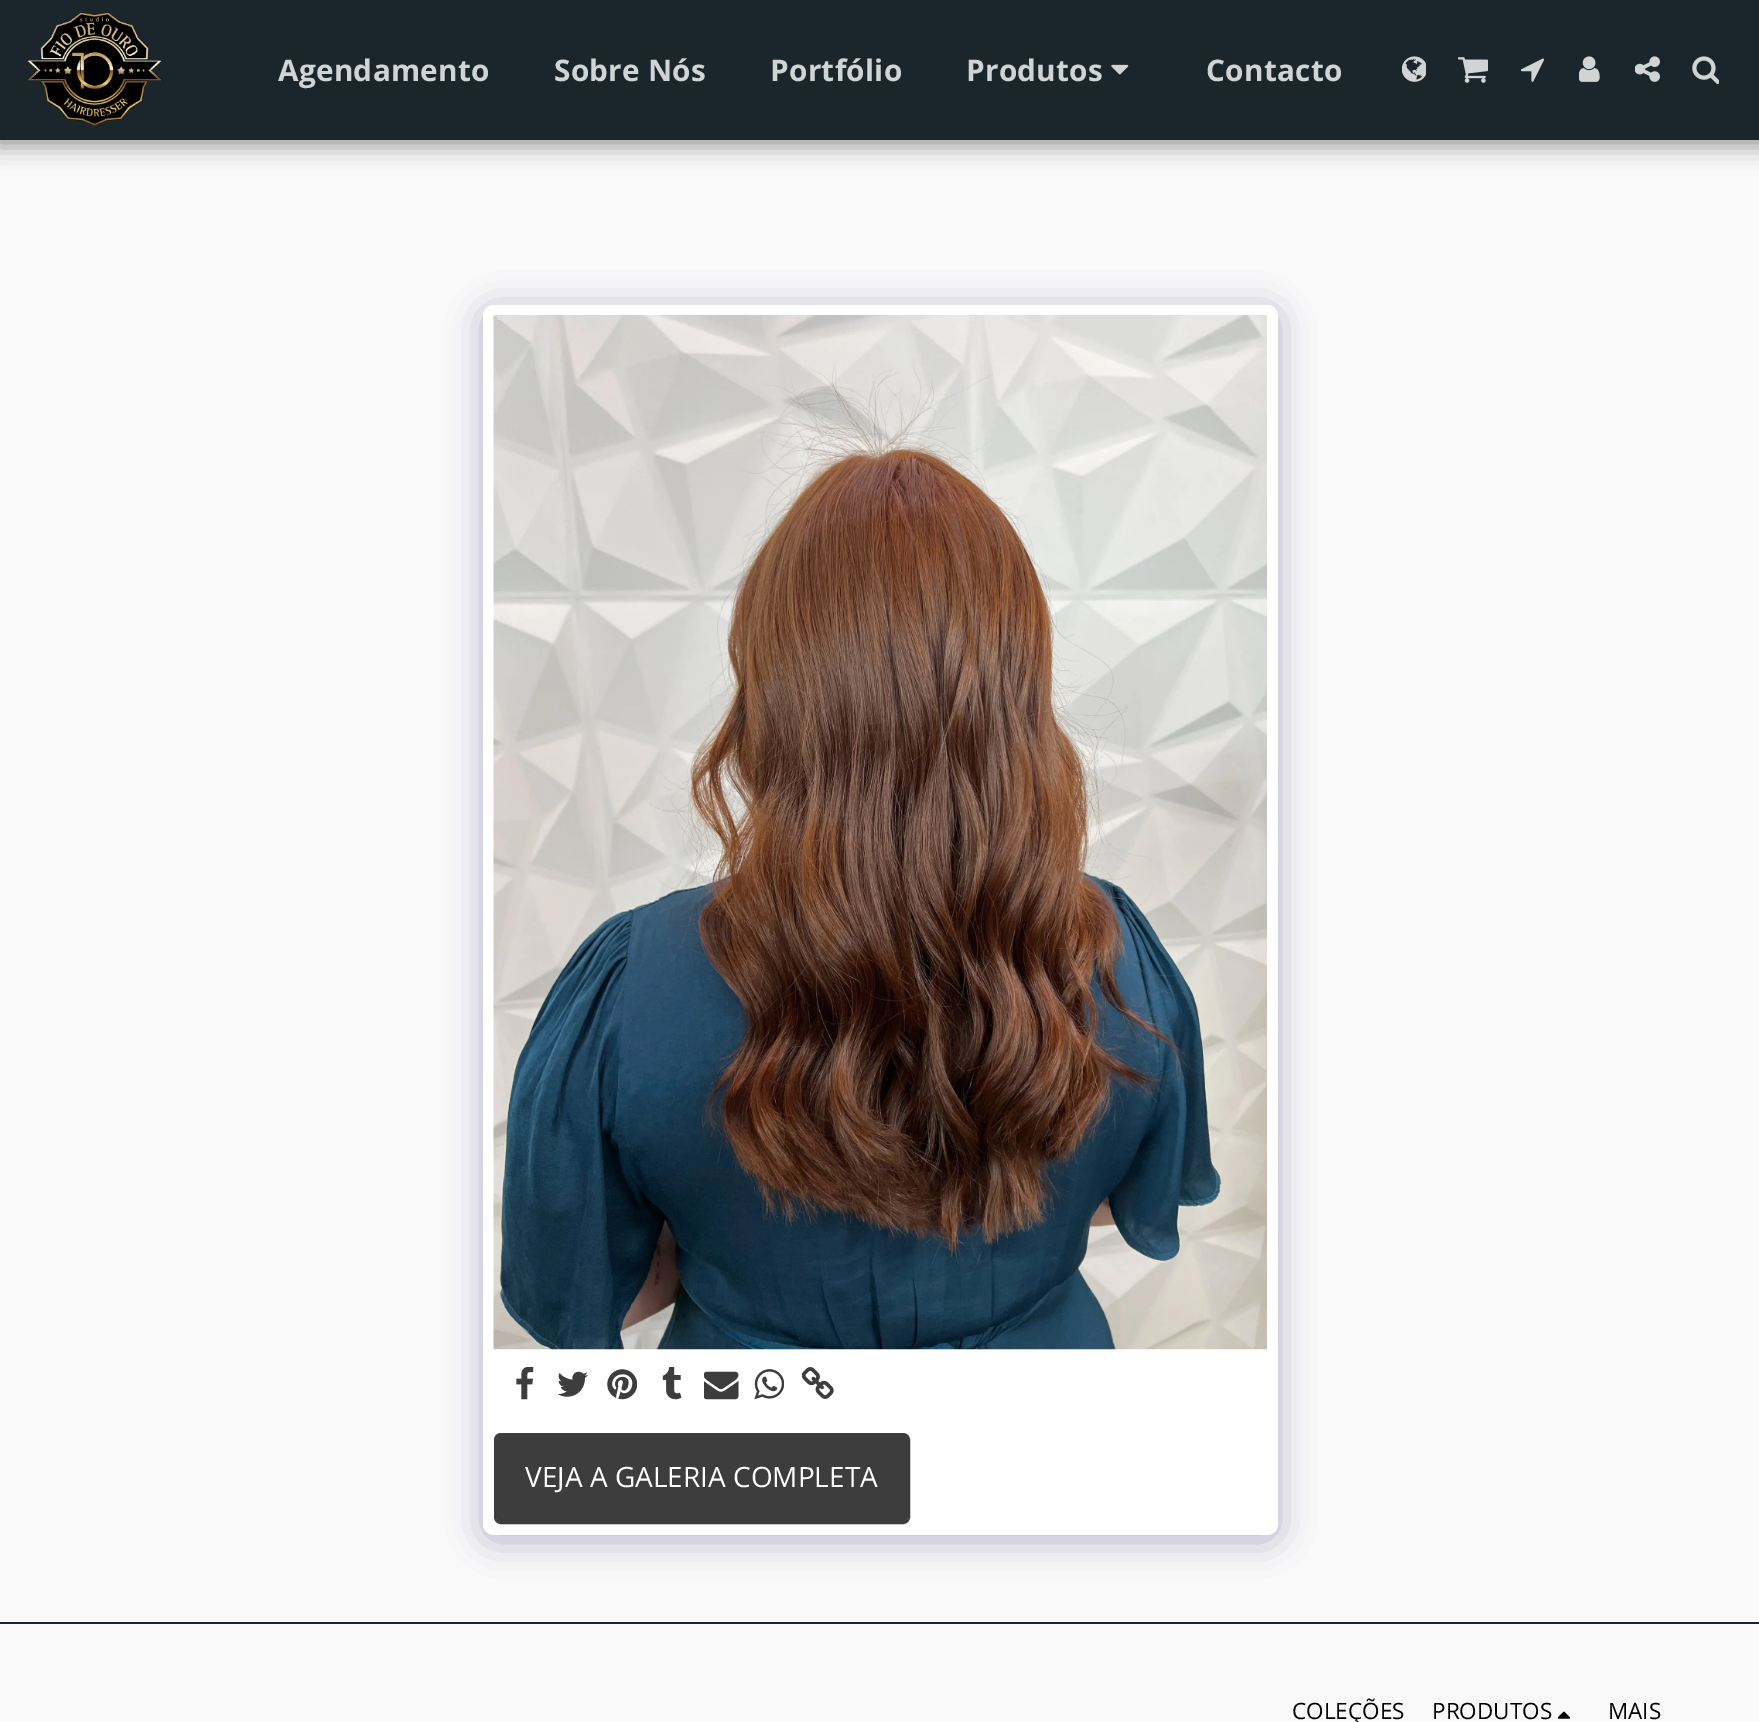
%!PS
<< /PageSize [1759 1722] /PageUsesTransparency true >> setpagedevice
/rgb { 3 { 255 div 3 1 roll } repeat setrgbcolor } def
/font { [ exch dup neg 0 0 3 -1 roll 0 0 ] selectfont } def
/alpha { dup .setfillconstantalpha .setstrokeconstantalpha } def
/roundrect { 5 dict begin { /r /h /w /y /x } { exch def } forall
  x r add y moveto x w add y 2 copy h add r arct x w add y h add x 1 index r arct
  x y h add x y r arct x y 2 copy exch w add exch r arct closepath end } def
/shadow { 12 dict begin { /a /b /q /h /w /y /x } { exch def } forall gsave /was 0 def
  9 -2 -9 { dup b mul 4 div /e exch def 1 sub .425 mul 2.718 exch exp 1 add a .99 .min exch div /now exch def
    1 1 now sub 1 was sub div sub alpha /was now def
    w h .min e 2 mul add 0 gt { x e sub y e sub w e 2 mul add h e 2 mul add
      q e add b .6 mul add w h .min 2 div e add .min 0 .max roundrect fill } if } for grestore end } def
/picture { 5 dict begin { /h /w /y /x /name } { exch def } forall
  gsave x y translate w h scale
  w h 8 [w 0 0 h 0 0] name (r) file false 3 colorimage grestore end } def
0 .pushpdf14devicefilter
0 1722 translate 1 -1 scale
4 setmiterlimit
249 249 249 rgb
0 0 1759 1722 rectfill
0 0 0 rgb
-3 0 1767 147 0 10.5 0.35 shadow
27 38 44 rgb
0 0 1759 140 rectfill
(img/1.rgb) 26 12 137 114 picture
(img/2.rgb) 1111 64 18 11 picture
(img/3.rgb) 1402 56 24 26 picture
(img/4.rgb) 1458 57 30 26 picture
(img/5.rgb) 1521 58 23 24 picture
(img/6.rgb) 1579 56 21 26 picture
(img/7.rgb) 1635 56 25 26 picture
(img/8.rgb) 1692 56 27 28 picture
77 63 122 rgb
483 310 795 1230 11 17.5 0.4 shadow
255 255 255 rgb
483 305 795 1230 11 roundrect fill
(img/9.rgb) 493 315 774 1035 picture
(img/10.rgb) 516 1367 18 33 picture
(img/11.rgb) 557 1371 31 26 picture
(img/12.rgb) 607 1369 30 31 picture
(img/13.rgb) 662 1367 20 33 picture
(img/14.rgb) 704 1371 35 29 picture
(img/15.rgb) 754 1369 30 31 picture
(img/16.rgb) 802 1367 32 32 picture
61 61 61 rgb
500 1435 moveto 904 1435 lineto 906 1435 908 1437 908 1439 curveto 908 1518 lineto 908 1519 906 1519 904 1519 curveto 500 1519 lineto 497 1519 495 1519 495 1518 curveto 495 1439 lineto 495 1437 497 1435 500 1435 curveto closepath fill
2 setlinewidth
495 1434 414 89 6 roundrect stroke
497 1519 410 4 rectfill
27 38 44 rgb
0 1622 1759 2 rectfill
(img/17.rgb) 1558 1711 12 8 picture
/OpenSans-Bold 29.75 font
209 212 213 rgb
278 81 moveto 0.25 0 (Agendamento) ashow
554 81 moveto 0.25 0 (Sobre Nós) ashow
770 81 moveto 0.25 0 (Portfólio) ashow
966 81 moveto 0.25 0 (Produtos) ashow
1206 81 moveto 0.25 0 (Contacto) ashow
/OpenSans-Regular 28 font
255 255 255 rgb
525 1487 moveto (VEJA A GALERIA COMPLETA) show
/OpenSans-Regular 22.5 font
0 0 0 rgb
[
  [(COLEÇÕES) 1292 1719]
  [(PRODUTOS) 1432 1719]
  [(MAIS) 1608 1719]
] { aload pop moveto show } forall
.poppdf14devicefilter showpage
